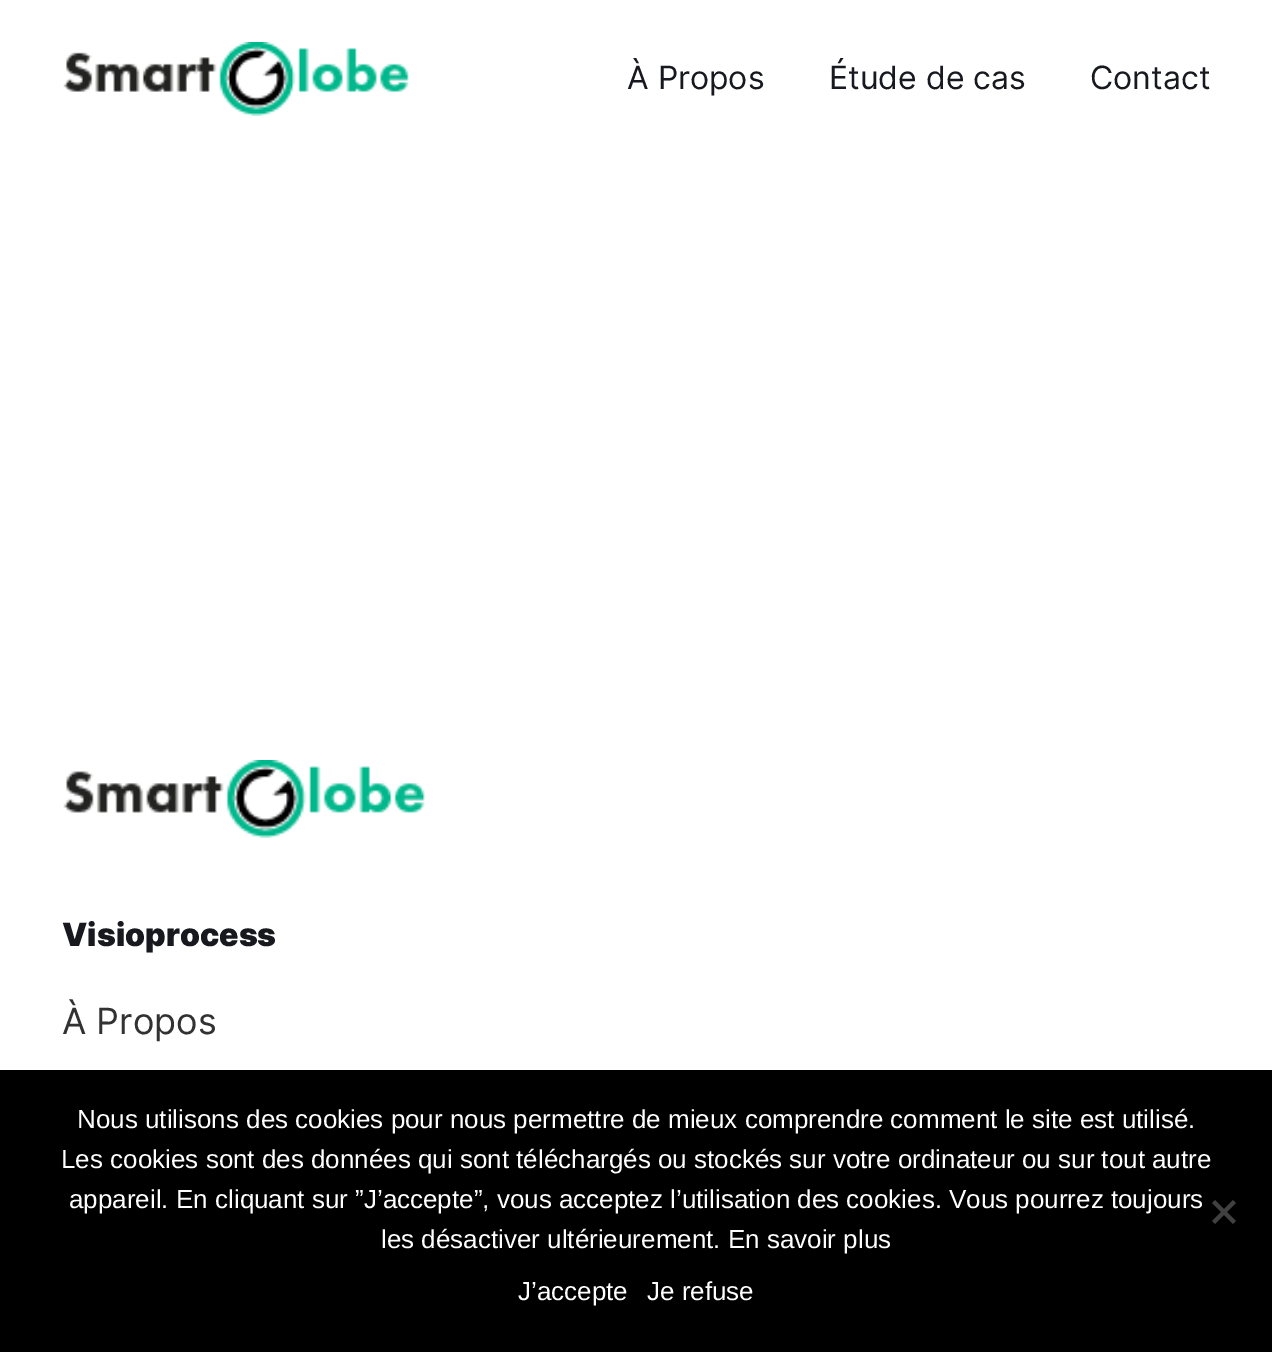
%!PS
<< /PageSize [1272 1352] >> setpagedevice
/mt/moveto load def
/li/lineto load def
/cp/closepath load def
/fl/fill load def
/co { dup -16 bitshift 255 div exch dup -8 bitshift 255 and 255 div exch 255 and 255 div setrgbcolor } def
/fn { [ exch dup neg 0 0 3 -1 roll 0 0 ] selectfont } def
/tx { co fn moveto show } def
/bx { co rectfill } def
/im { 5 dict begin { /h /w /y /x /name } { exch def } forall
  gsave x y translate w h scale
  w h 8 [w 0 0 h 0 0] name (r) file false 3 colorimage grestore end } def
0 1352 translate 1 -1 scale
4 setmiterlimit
0 0 1272 1352 16#FFFFFF bx
(media/1.raw) 63 42 346 74 im
(media/2.raw) 63 760 362 78 im
0 1070 1272 282 16#000000 bx
16#404040 co
1233 1200 mt 1236 1203 li 1215 1224 li 1212 1221 li cp fl
1212 1203 mt 1215 1200 li 1236 1221 li 1233 1224 li cp fl
(À Propos) 627 89 /Inter-Regular 32 16#17191F tx
(Étude de cas) 829 89 /Inter-Regular 32 16#17191F tx
(Contact) 1090 89 /Inter-Regular 32 16#17191F tx
(Visioprocess) 62 946 /Inter-Black 32 16#17191F tx
(À Propos) 62 1034 /Inter-Regular 36 16#323232 tx
(Nous utilisons des cookies pour nous permettre de mieux comprendre comment le site est utilisé.) 77 1128 /LiberationSans-Regular 26 16#FFFFFF tx
(Les cookies sont des données qui sont téléchargés ou stockés sur votre ordinateur ou sur tout autre) 61 1168 /LiberationSans-Regular 26 16#FFFFFF tx
(appareil. En cliquant sur ”J’accepte”, vous acceptez l’utilisation des cookies. Vous pourrez toujours) 69 1208 /LiberationSans-Regular 26 16#FFFFFF tx
(les désactiver ultérieurement. En savoir plus) 381 1248 /LiberationSans-Regular 26 16#FFFFFF tx
(J’accepte) 518 1300 /LiberationSans-Regular 26 16#FFFFFF tx
(Je refuse) 647 1300 /LiberationSans-Regular 26 16#FFFFFF tx
showpage
